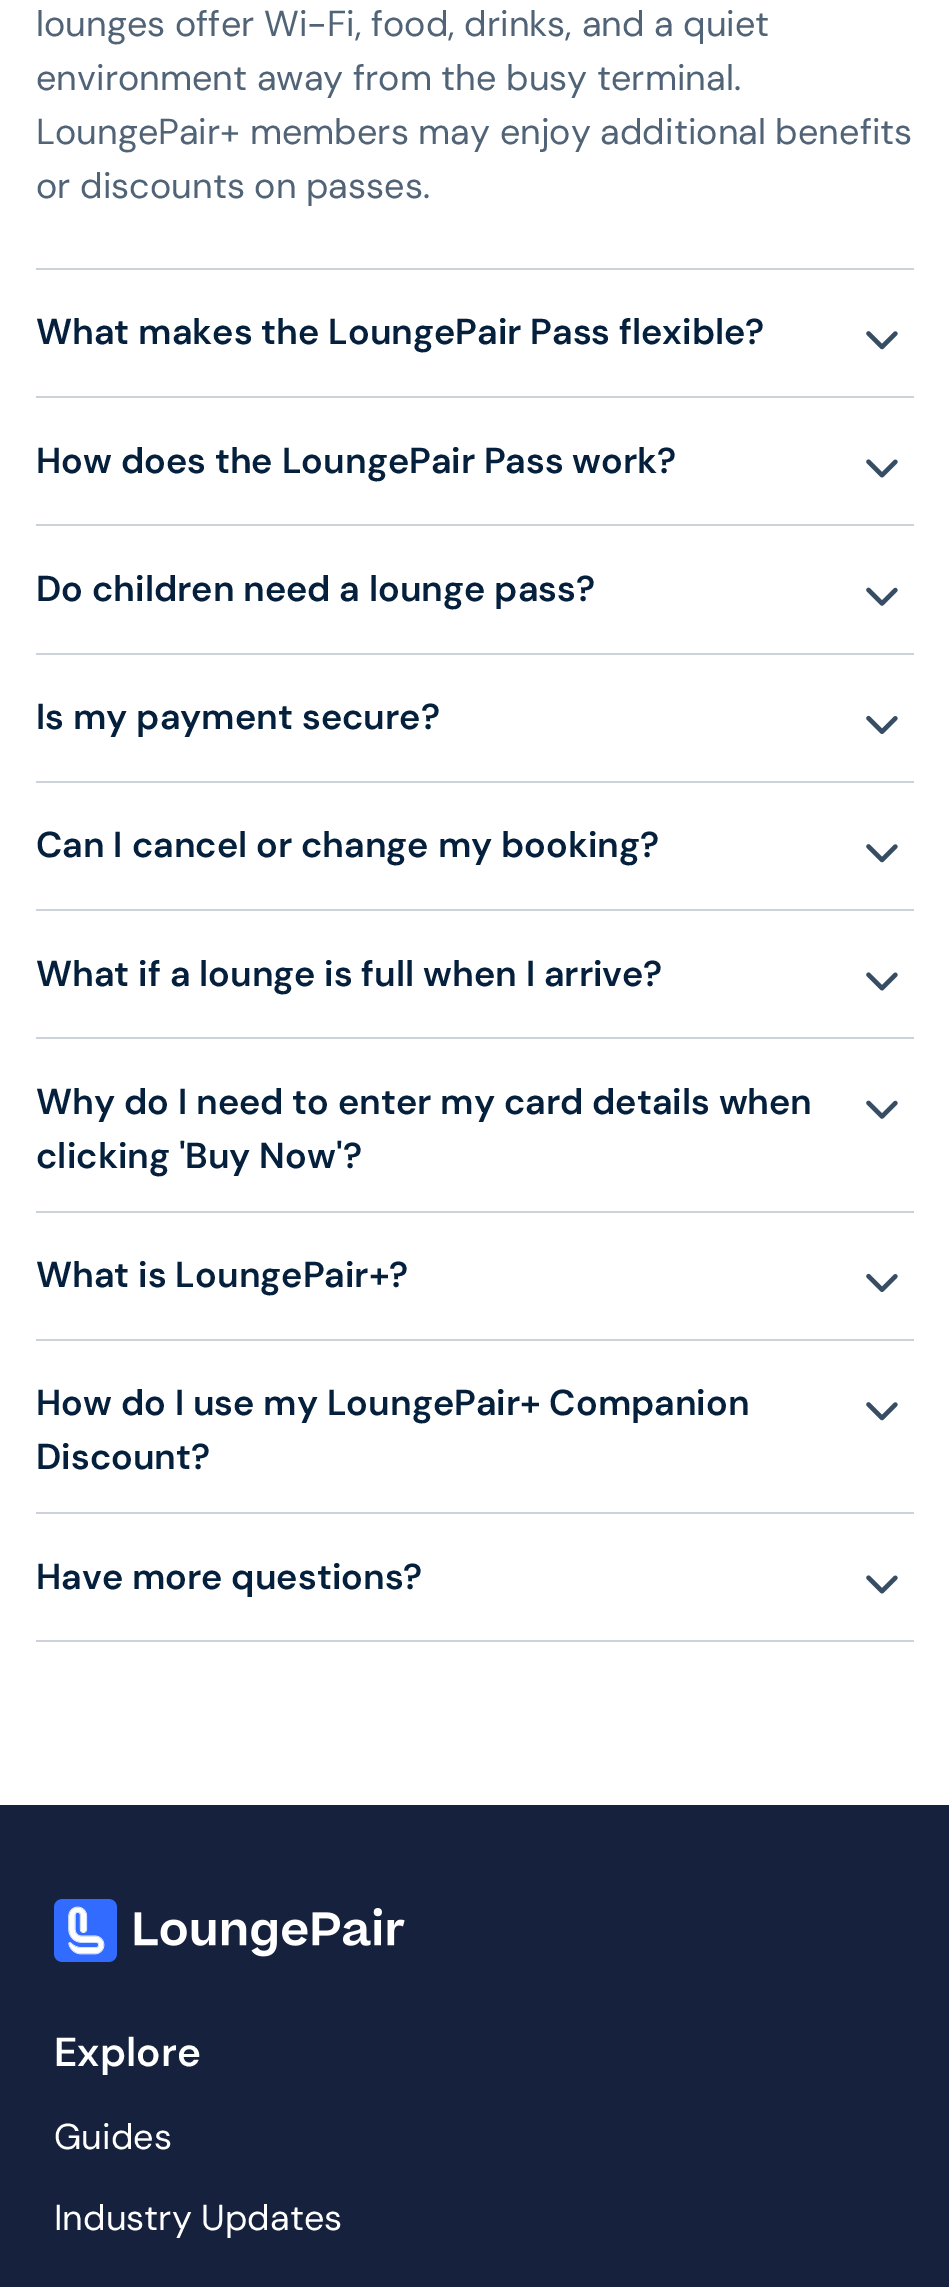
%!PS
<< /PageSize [949 2287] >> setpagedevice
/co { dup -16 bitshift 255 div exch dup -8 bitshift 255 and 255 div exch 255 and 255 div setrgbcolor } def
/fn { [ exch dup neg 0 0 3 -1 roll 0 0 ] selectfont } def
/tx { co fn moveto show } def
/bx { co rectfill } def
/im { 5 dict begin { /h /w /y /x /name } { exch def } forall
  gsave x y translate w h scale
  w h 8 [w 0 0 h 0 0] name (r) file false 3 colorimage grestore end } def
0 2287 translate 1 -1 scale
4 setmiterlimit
0 0 949 2287 16#FFFFFF bx
36 268 878 2 16#CDD2D8 bx
36 396 878 2 16#CDD2D8 bx
(media/1.raw) 866 331 32 19 im
36 524 878 2 16#CDD2D8 bx
(media/2.raw) 866 459 32 19 im
36 653 878 2 16#CDD2D8 bx
(media/3.raw) 866 587 32 19 im
36 781 878 2 16#CDD2D8 bx
(media/4.raw) 866 715 32 19 im
36 909 878 2 16#CDD2D8 bx
(media/1.raw) 866 844 32 19 im
36 1037 878 2 16#CDD2D8 bx
(media/2.raw) 866 972 32 19 im
36 1211 878 2 16#CDD2D8 bx
(media/3.raw) 866 1100 32 19 im
36 1339 878 2 16#CDD2D8 bx
(media/4.raw) 866 1273 32 19 im
36 1512 878 2 16#CDD2D8 bx
(media/1.raw) 866 1402 32 19 im
36 1640 878 2 16#CDD2D8 bx
(media/2.raw) 866 1575 32 19 im
0 1805 949 482 16#16213D bx
(media/5.raw) 54 1899 351 63 im
(lounges offer Wi-Fi, food, drinks, and a quiet) 36 36 /DMSans-Regular 36 16#506377 tx
(environment away from the busy terminal.) 36 90 /DMSans-Regular 36 16#506377 tx
(LoungePair+ members may enjoy additional benefits) 36 144 /DMSans-Regular 36 16#506377 tx
(or discounts on passes.) 36 198 /DMSans-Regular 36 16#506377 tx
(What makes the LoungePair Pass flexible?) 36 344 /DMSans-SemiBold 36 16#05203C tx
(How does the LoungePair Pass work?) 36 473 /DMSans-SemiBold 36 16#05203C tx
(Do children need a lounge pass?) 36 601 /DMSans-SemiBold 36 16#05203C tx
(Is my payment secure?) 36 729 /DMSans-SemiBold 36 16#05203C tx
(Can I cancel or change my booking?) 36 857 /DMSans-SemiBold 36 16#05203C tx
(What if a lounge is full when I arrive?) 36 986 /DMSans-SemiBold 36 16#05203C tx
(Why do I need to enter my card details when) 36 1114 /DMSans-SemiBold 36 16#05203C tx
(clicking 'Buy Now'?) 36 1168 /DMSans-SemiBold 36 16#05203C tx
(What is LoungePair+?) 36 1287 /DMSans-SemiBold 36 16#05203C tx
(How do I use my LoungePair+ Companion) 36 1415 /DMSans-SemiBold 36 16#05203C tx
(Discount?) 36 1469 /DMSans-SemiBold 36 16#05203C tx
(Have more questions?) 36 1589 /DMSans-SemiBold 36 16#05203C tx
(Explore) 54 2066 /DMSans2-SemiBold 40.5 16#FFFFFF tx
(Guides) 54 2149 /DMSans-Regular 36 16#FFFFFF tx
(Industry Updates) 54 2230 /DMSans-Regular 36 16#FFFFFF tx
showpage
